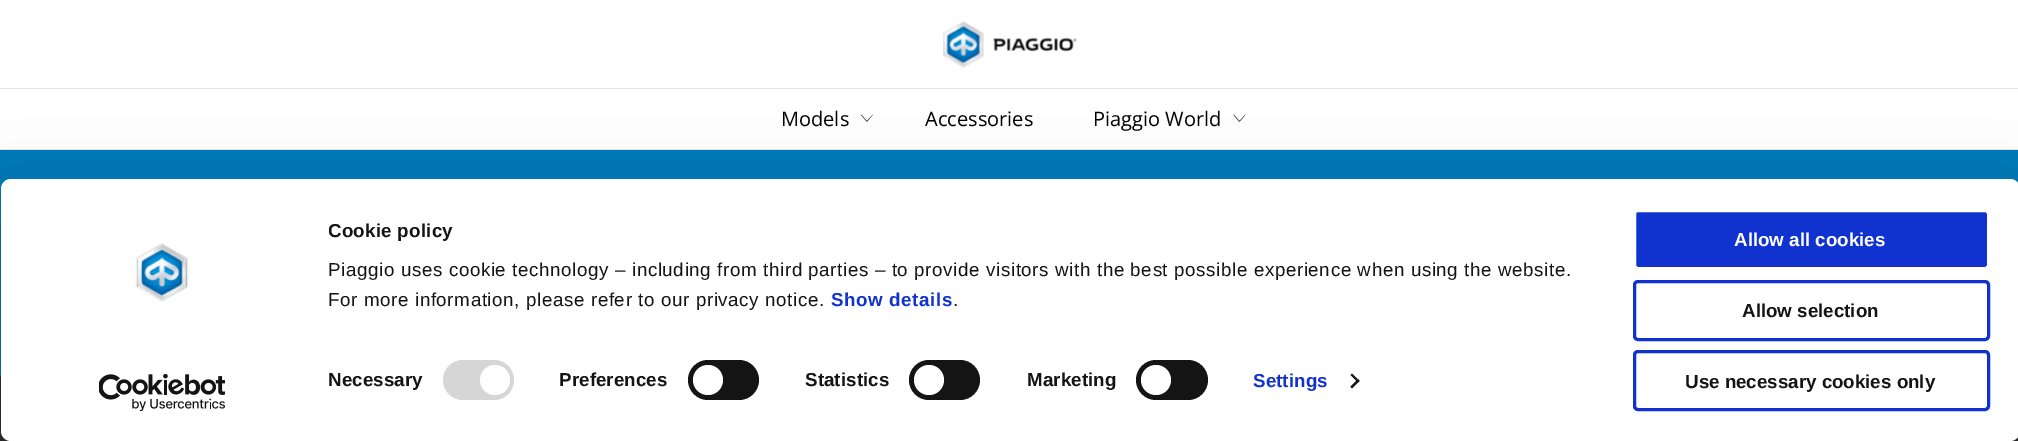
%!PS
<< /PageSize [2018 441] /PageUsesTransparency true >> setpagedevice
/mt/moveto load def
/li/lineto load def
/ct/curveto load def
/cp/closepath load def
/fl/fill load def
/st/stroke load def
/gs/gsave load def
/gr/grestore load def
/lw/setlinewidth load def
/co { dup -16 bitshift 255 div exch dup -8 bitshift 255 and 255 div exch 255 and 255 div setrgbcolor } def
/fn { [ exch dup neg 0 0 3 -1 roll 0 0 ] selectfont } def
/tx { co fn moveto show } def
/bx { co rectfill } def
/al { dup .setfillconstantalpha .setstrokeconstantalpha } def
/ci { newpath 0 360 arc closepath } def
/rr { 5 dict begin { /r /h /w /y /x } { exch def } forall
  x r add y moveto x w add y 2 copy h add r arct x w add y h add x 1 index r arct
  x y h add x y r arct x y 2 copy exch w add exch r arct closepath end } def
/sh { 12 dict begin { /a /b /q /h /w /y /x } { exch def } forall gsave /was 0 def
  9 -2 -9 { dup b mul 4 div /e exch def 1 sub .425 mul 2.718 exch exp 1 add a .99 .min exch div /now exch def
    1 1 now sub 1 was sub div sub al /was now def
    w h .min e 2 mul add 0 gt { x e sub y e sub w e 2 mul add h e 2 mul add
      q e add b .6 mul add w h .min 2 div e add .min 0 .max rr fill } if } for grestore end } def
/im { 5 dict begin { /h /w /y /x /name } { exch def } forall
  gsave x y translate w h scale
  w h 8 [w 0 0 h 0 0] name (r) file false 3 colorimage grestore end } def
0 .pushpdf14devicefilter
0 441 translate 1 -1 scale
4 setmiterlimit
0 0 2018 441 16#007AB8 bx
0 0 2018 88 16#FFFFFF bx
(media/1.raw) 943 21 134 47 im
0 89 2018 60 16#FFFFFF bx
0 88 2018 1 16#E5E5E5 bx
0 149 2018 1 16#E5E5E5 bx
(media/2.raw) 860 114 13 8 im
(media/3.raw) 1233 114 13 8 im
0 376 2018 65 16#303030 bx
gs
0 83 mt 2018 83 li 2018 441 li 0 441 li cp 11 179 mt 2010 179 li 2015.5 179 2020 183.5 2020 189 ct 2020 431 li 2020 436.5 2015.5 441 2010 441 ct 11 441 li 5.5 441 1 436.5 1 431 ct 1 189 li 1 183.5 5.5 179 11 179 ct cp eoclip newpath
16#000000 co
1 216 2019 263 10 44 .3 sh
gr
16#FFFFFF co
1 179 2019 262 10 rr fl
(media/4.raw) 135 243 54 59 im
(media/5.raw) 99 374 126 37 im
16#D6D6D6 co
443 360 71 40 20 rr fl
16#FFFFFF co
495 380 15 ci fl
16#141414 co
688 360 71 40 20 rr fl
16#FFFFFF co
708 380 15 ci fl
16#141414 co
909 360 71 40 20 rr fl
16#FFFFFF co
929 380 15 ci fl
16#141414 co
1136 360 72 40 20 rr fl
16#FFFFFF co
1156 380 15 ci fl
16#141414 co
1352 373.5 mt 1359.5 381 li 1358 382.5 li 1350.5 375 li cp fl
1358 379 mt 1359.5 381 li 1352 388.5 li 1350.5 386.5 li cp fl
16#1032CF co
1634.5 210.5 354 58 3.5 rr gs fl gr
16#FFFFFF co
3 lw
st
16#1032CF co
1634.5 281.5 354 58 3.5 rr st
1634.5 351.5 354 58 3.5 rr st
(Models) 781 126 /OpenSans-Regular 20 16#000000 tx
(Accessories) 925 126 /OpenSans-Regular 20 16#000000 tx
(Piaggio World) 1093 126 /OpenSans-Regular 20 16#000000 tx
gs
329 216 1267 99 rectclip
/LiberationSans-Bold 18.75 fn
16#141414 co
328 237 mt .25 0 (Cookie policy) ashow
gr
/LiberationSans-Regular 18.75 fn
16#141414 co
328 276 mt .62 0 (Piaggio uses cookie technology – including from third parties – to provide visitors with the best possible experience when using the website.) ashow
328 306 mt .62 0 (For more information, please refer to our privacy notice.) ashow
/LiberationSans-Bold 18.75 fn
16#1032CF co
831 306 mt .62 0 (Show details) ashow
/LiberationSans-Regular 18.75 fn
16#141414 co
953 306 mt .62 0 (.) ashow
/LiberationSans-Bold 18.75 fn
328 386 mt .1 0 (Necessary) ashow
559 386 mt .1 0 (Preferences) ashow
805 386 mt .1 0 (Statistics) ashow
1027 386 mt .1 0 (Marketing) ashow
16#1032CF co
1253 387 mt .1 0 (Settings) ashow
(Allow all cookies) 1734 246 /LiberationSans-Bold 18.75 16#FFFFFF tx
(Allow selection) 1742 317 /LiberationSans-Bold 18.75 16#141414 tx
(Use necessary cookies only) 1685 388 /LiberationSans-Bold 18.75 16#141414 tx
.poppdf14devicefilter showpage
